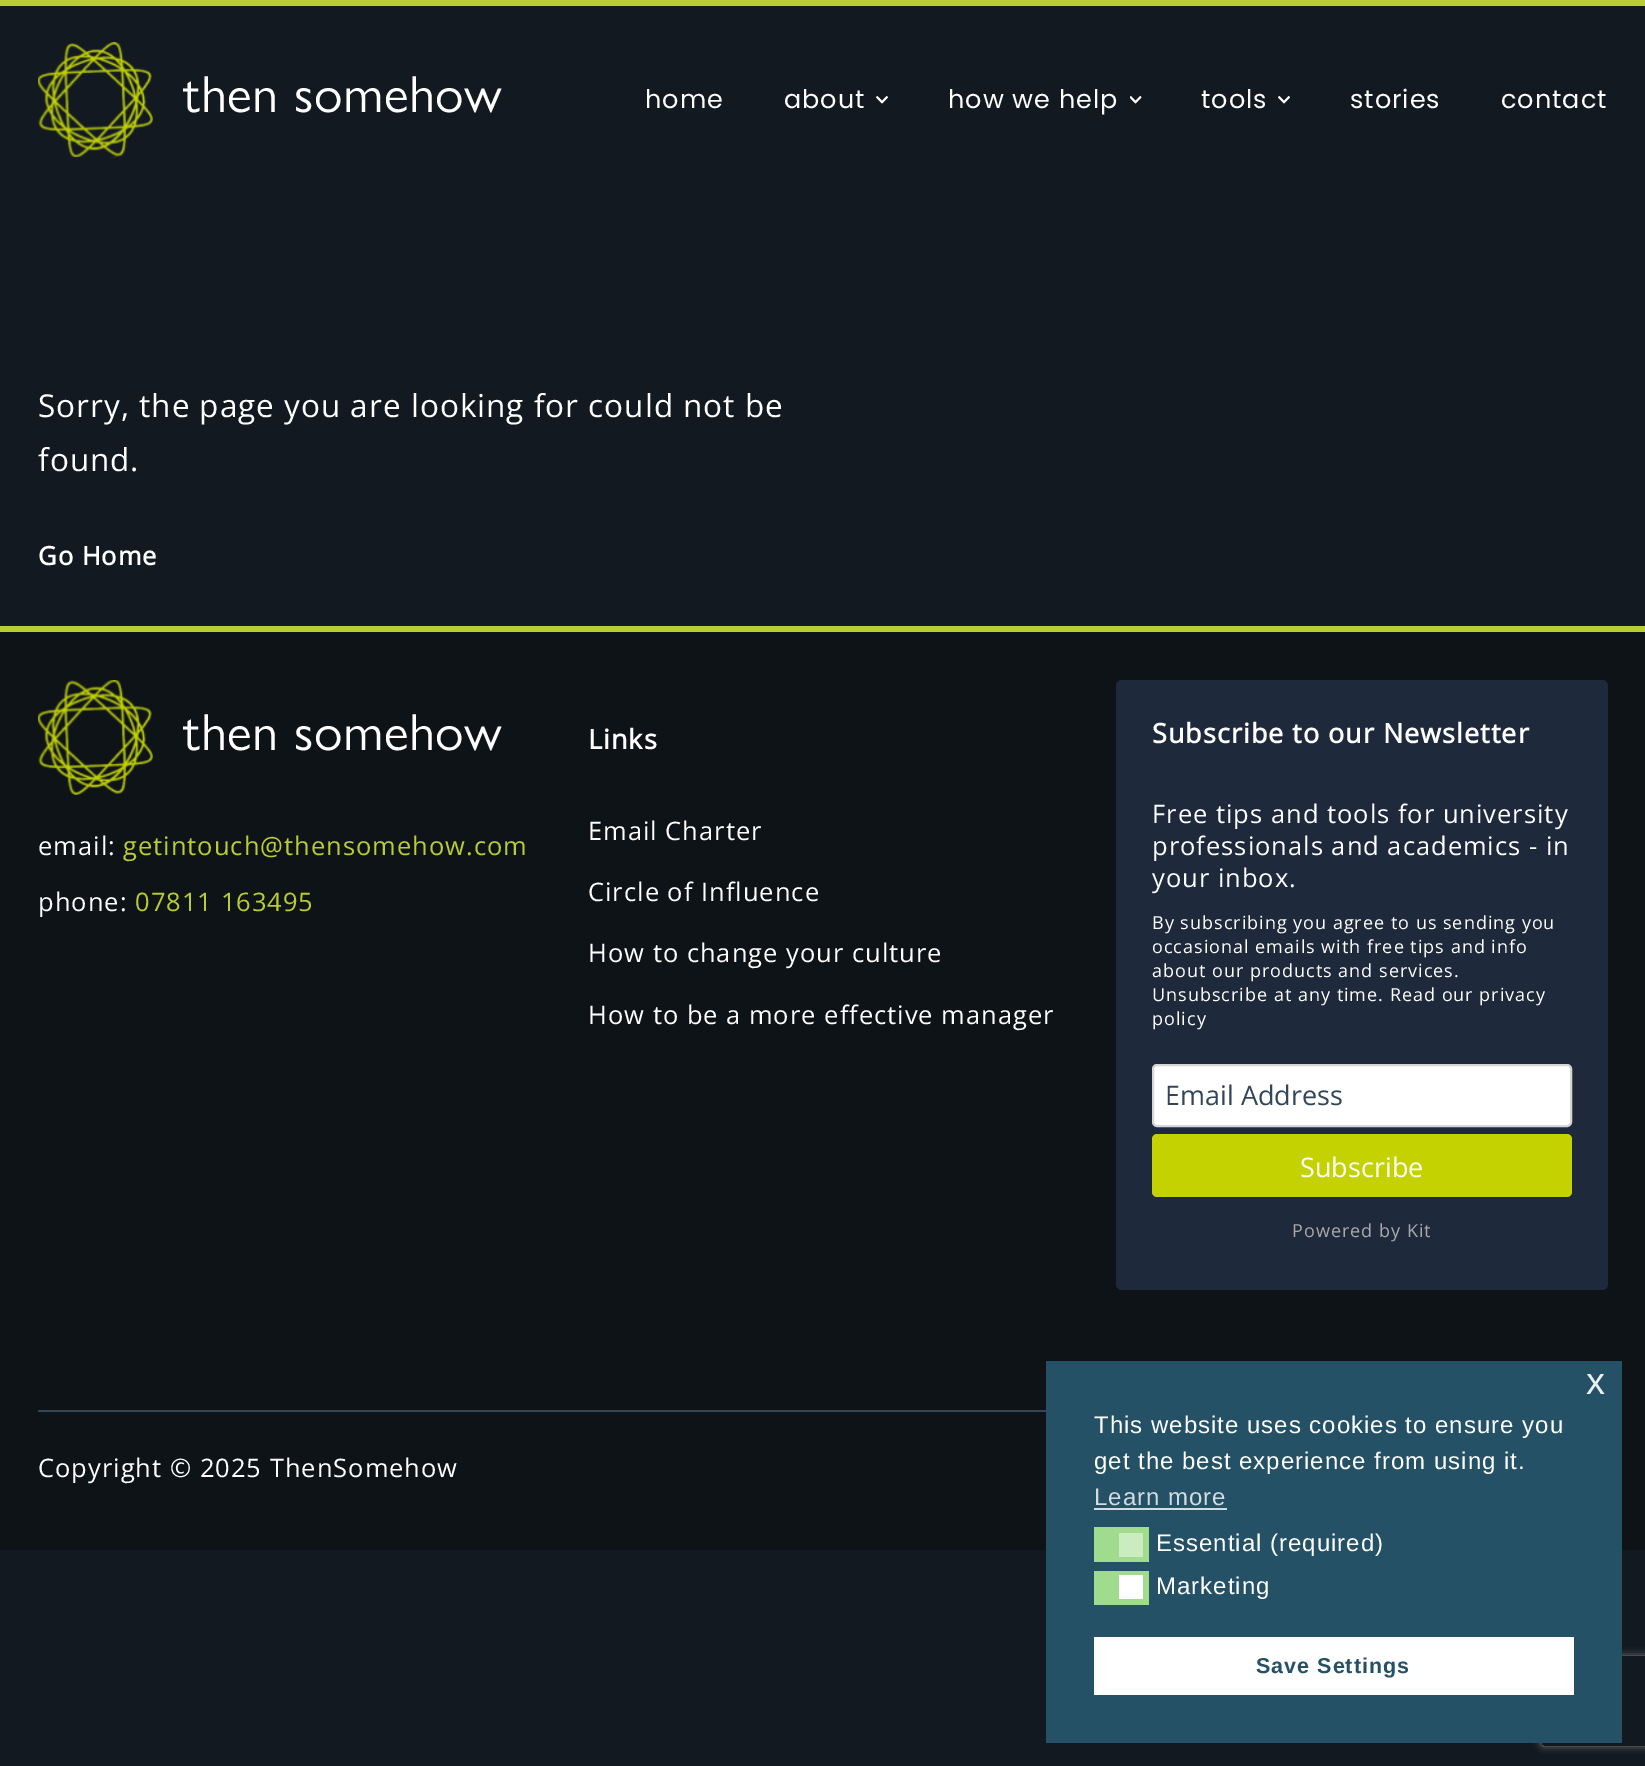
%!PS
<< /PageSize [1645 1766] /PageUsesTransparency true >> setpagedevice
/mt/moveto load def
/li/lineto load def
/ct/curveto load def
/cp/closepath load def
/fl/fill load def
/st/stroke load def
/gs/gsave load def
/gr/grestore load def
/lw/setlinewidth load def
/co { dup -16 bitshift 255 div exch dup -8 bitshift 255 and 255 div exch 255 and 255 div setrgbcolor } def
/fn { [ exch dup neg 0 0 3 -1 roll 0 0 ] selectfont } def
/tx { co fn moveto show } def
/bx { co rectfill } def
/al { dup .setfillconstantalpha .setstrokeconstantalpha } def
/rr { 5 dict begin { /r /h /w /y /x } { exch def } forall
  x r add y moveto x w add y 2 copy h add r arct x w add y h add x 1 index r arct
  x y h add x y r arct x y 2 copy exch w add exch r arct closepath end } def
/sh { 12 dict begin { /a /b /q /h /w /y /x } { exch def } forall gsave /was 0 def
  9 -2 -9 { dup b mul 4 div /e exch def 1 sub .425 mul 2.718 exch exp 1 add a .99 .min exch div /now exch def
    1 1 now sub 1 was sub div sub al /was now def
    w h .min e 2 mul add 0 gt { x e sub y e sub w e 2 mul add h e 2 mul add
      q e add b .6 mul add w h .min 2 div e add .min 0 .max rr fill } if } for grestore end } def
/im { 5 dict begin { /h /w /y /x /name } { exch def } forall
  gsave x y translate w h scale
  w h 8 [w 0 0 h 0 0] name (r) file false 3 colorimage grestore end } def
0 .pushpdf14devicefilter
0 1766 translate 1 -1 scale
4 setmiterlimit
0 0 1645 1766 16#121921 bx
0 0 1645 6 16#B9CD33 bx
(media/1.raw) 38 42 115 116 im
(media/2.raw) 876 96 12 8 im
(media/3.raw) 1130 96 12 8 im
(media/2.raw) 1278 96 12 8 im
0 632 1645 918 16#0E1318 bx
0 626 1645 6 16#B9CD33 bx
(media/4.raw) 38 680 115 115 im
16#1E293B co
1116 680 492 610 6 rr fl
16#FFFFFF co
1153 1065 418 61 4 rr gs fl gr
16#D6D6D6 co
2 lw
st
16#C3D200 co
1152 1134 420 63 5 rr fl
38 1410 1008 2 16#324659 bx
gs
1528 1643 mt 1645 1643 li 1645 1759 li 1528 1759 li cp 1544 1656 mt 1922 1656 li 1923.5 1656 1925 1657.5 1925 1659 ct 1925 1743 li 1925 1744.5 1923.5 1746 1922 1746 ct 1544 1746 li 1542.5 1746 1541 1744.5 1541 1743 ct 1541 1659 li 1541 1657.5 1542.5 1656 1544 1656 ct cp eoclip newpath
16#808080 co
1541 1656 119 90 3 4 1 sh
gr
1046 1361 576 382 16#245165 bx
1094 1508 133 2 16#D3DCE0 bx
1094 1527 55 35 16#A0DB8E bx
1119 1533 24 24 16#CBEBC1 bx
1094 1571 55 34 16#A0DB8E bx
1119 1575 24 24 16#FFFFFF bx
1094 1637 480 58 16#FFFFFF bx
/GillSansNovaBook-Regular 52.5 fn
183 112 mt .5 0 (then somehow) ashow
/Poppins-Regular 25.5 fn
645 108 mt 1 0 (home) ashow
784 108 mt 1 0 (about) ashow
948 108 mt 1 0 (how we help) ashow
1201 108 mt 1 0 (tools) ashow
1350 108 mt 1 0 (stories) ashow
1501 108 mt 1 0 (contact) ashow
/OpenSans-Regular 31.5 fn
38 417 mt 1 0 (Sorry, the page you are looking for could not be) ashow
38 471 mt 1 0 (found.) ashow
/OpenSans-Bold 25.5 fn
38 565 mt 1 0 (Go Home) ashow
/GillSansNovaBook-Regular 52.5 fn
183 750 mt .5 0 (then somehow) ashow
/OpenSans-Regular 25.5 fn
38 855 mt 1 0 (email:) ashow
16#B9CD33 co
123 855 mt 1 0 (getintouch@thensomehow.com) ashow
16#FFFFFF co
38 911 mt 1 0 (phone:) ashow
16#B9CD33 co
135 911 mt 1 0 (07811 163495) ashow
/OpenSans-Bold 27 fn
16#FFFFFF co
588 749 mt 1 0 (Links) ashow
/OpenSans-Regular 25.5 fn
588 840 mt 1 0 (Email Charter) ashow
588 901 mt 1 0 (Circle of Influence) ashow
588 962 mt 1 0 (How to change your culture) ashow
588 1024 mt 1 0 (How to be a more effective manager) ashow
/OpenSans-Bold 27 fn
1152 743 mt 1 0 (Subscribe to our Newsletter) ashow
/OpenSans-Regular 25.5 fn
1152 823 mt 1 0 (Free tips and tools for university) ashow
1152 855 mt 1 0 (professionals and academics - in) ashow
1152 887 mt 1 0 (your inbox.) ashow
/OpenSans-Regular 18 fn
1152 929 mt 1 0 (By subscribing you agree to us sending you) ashow
1152 953 mt 1 0 (occasional emails with free tips and info) ashow
1152 977 mt 1 0 (about our products and services.) ashow
1152 1001 mt 1 0 (Unsubscribe at any time. Read our privacy) ashow
1152 1025 mt 1 0 (policy) ashow
(Email Address) 1165 1105 /OpenSans-Regular 27 16#324659 tx
(Subscribe) 1300 1177 /OpenSans-Regular 27 16#FFFFFF tx
/OpenSans-Regular 18 fn
16#AAAAAA co
1292 1237 mt 1 0 (Powered by Kit) ashow
/OpenSans-Regular 25.5 fn
16#FFFFFF co
38 1477 mt 1 0 (Copyright © 2025 ThenSomehow) ashow
/LiberationSans-Regular 38 fn
16#E9EEF0 co
1586 1394 mt 1 0 (x) ashow
/LiberationSans-Regular 24 fn
16#FFFFFF co
1094 1433 mt 1 0 (This website uses cookies to ensure you) ashow
1094 1469 mt 1 0 (get the best experience from using it.) ashow
16#D3DCE0 co
1094 1505 mt 1 0 (Learn more) ashow
16#FFFFFF co
1156 1551 mt 1 0 (Essential \(required\)) ashow
1156 1594 mt 1 0 (Marketing) ashow
/LiberationSans-Bold 21.5 fn
16#245165 co
1256 1673 mt 1 0 (Save Settings) ashow
.poppdf14devicefilter showpage
